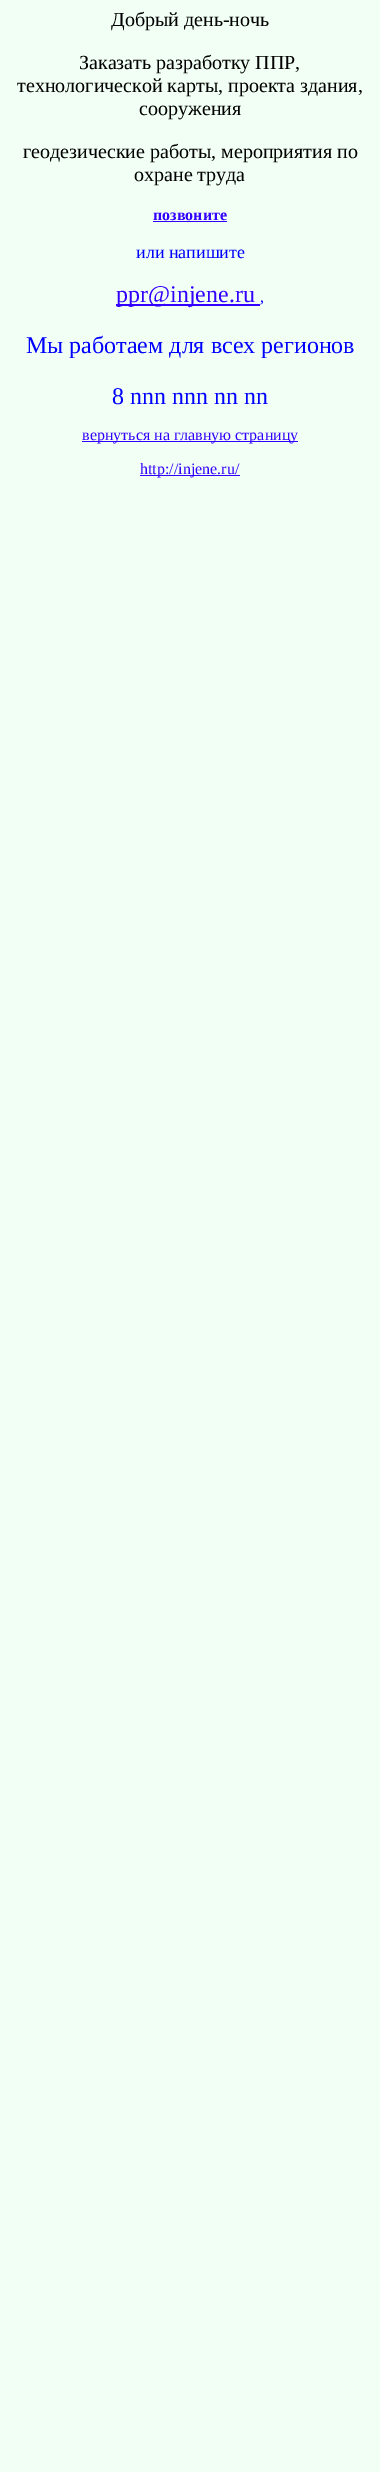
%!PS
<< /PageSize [380 2472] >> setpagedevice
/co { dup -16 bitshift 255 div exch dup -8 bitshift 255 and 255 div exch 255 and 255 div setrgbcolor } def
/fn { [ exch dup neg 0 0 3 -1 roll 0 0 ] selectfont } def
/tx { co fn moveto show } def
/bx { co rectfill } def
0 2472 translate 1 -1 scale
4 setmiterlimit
0 0 380 2472 16#F2FFF4 bx
153 221 74 1 16#3300FF bx
116 304 144 2 16#3300FF bx
82 441 216 1 16#3300FF bx
140 475 100 1 16#3300FF bx
(Добрый день-ночь) 111 26 /LiberationSerif-Regular 20 16#000000 tx
(Заказать разработку ППР,) 79 69 /LiberationSerif-Regular 20 16#000000 tx
(технологической карты, проекта здания,) 17 92 /LiberationSerif-Regular 20 16#000000 tx
(сооружения) 139 115 /LiberationSerif-Regular 20 16#000000 tx
(геодезические работы, мероприятия по) 23 158 /LiberationSerif-Regular 20 16#000000 tx
(охране труда) 134 181 /LiberationSerif-Regular 20 16#000000 tx
(позвоните) 153 220 /LiberationSerif-Bold 16 16#3300FF tx
(или напишите) 136 258 /LiberationSerif-Regular 18 16#0000FF tx
(ppr@injene.ru) 116 302 /LiberationSerif-Regular 24 16#3300FF tx
(,) 260 302 /LiberationSerif-Regular 16 16#0000FF tx
(Мы работаем для всех регионов) 26 353 /LiberationSerif-Regular 24 16#0000FF tx
(8 nnn nnn nn nn) 112 404 /LiberationSerif-Regular 24 16#0000FF tx
(вернуться на главную страницу) 82 440 /LiberationSerif-Regular 16 16#3300FF tx
(http://injene.ru/) 140 474 /LiberationSerif-Regular 16 16#3300FF tx
showpage
